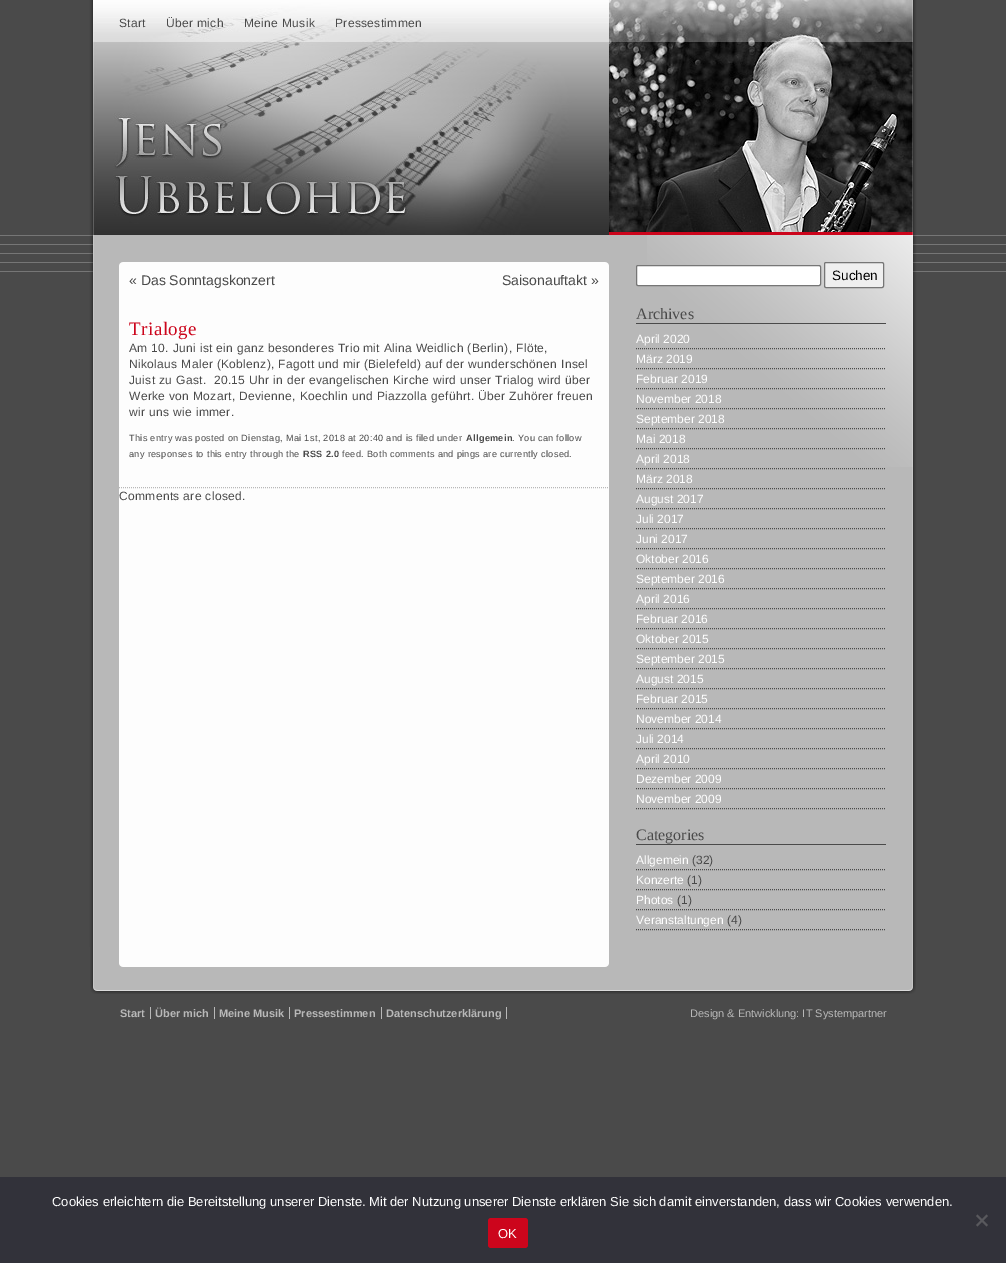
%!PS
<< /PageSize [1006 1263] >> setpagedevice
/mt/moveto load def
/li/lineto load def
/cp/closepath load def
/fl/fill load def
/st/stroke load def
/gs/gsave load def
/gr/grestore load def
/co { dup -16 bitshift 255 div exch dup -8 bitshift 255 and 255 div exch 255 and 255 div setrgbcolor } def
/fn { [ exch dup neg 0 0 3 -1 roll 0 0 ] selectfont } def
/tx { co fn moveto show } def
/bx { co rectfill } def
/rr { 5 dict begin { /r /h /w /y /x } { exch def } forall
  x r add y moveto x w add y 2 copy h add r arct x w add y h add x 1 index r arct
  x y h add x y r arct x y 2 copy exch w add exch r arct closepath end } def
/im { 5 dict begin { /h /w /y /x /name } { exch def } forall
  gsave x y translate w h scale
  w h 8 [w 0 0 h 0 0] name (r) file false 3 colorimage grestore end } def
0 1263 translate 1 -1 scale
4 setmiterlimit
0 0 1006 1263 16#4A4A4A bx
(media/1.raw) 0 235 1006 37 im
(media/2.raw) 89 0 828 947 im
(media/3.raw) 93 0 820 235 im
(media/4.raw) 89 235 520 37 im
16#B8B8B8 co
[1 1] 0 setdash
119 487.5 mt 609 487.5 li st
(media/5.raw) 647 235 270 232 im
16#FFFFFF co
636.5 265.5 184 20 1.5 rr gs fl gr
16#767676 co
[] 0 setdash
st
16#EFEFEF co
824.5 262.5 59 25 1.5 rr gs fl gr
16#767676 co
st
636 323 250 1 16#4A4A4A bx
[1 1] 0 setdash
636 348.5 mt 886 348.5 li st
636 368.5 mt 886 368.5 li st
636 388.5 mt 886 388.5 li st
636 408.5 mt 886 408.5 li st
636 428.5 mt 886 428.5 li st
636 448.5 mt 886 448.5 li st
636 468.5 mt 886 468.5 li st
636 488.5 mt 886 488.5 li st
636 508.5 mt 886 508.5 li st
636 528.5 mt 886 528.5 li st
636 548.5 mt 886 548.5 li st
636 568.5 mt 886 568.5 li st
636 588.5 mt 886 588.5 li st
636 608.5 mt 886 608.5 li st
636 628.5 mt 886 628.5 li st
636 648.5 mt 886 648.5 li st
636 668.5 mt 886 668.5 li st
636 688.5 mt 886 688.5 li st
636 708.5 mt 886 708.5 li st
636 728.5 mt 886 728.5 li st
636 748.5 mt 886 748.5 li st
636 768.5 mt 886 768.5 li st
636 788.5 mt 886 788.5 li st
636 808.5 mt 886 808.5 li st
636 844 250 1 16#4A4A4A bx
636 869.5 mt 886 869.5 li st
636 889.5 mt 886 889.5 li st
636 909.5 mt 886 909.5 li st
636 929.5 mt 886 929.5 li st
(media/6.raw) 90 947 826 47 im
150 1007 1 12 16#B8B8B8 bx
214 1007 1 12 16#B8B8B8 bx
289 1007 1 12 16#B8B8B8 bx
381 1007 1 12 16#B8B8B8 bx
506 1007 1 12 16#B8B8B8 bx
0 1177 1006 86 16#32323A bx
16#59595D co
986.5 1214.5 mt 988 1216 li 977.5 1226.5 li 976 1225 li cp fl
976 1216 mt 977.5 1214.5 li 988 1225 li 986.5 1226.5 li cp fl
16#CC051C co
488 1218 40 30 3 rr fl
/LiberationSans-Regular 12 fn
16#4A4A4A co
119 27 mt .33 0 (Start) ashow
166 27 mt .33 0 (Über mich) ashow
244 27 mt .33 0 (Meine Musik) ashow
335 27 mt .33 0 (Pressestimmen) ashow
(« Das Sonntagskonzert) 129 285 /LiberationSans-Regular 14 16#4A4A4A tx
(Saisonauftakt ») 502 285 /LiberationSans-Regular 14 16#4A4A4A tx
/LiberationSerif-Regular 19 fn
16#CC051C co
129 335 mt .5 0 (Trialoge) ashow
/LiberationSans-Regular 12 fn
16#4A4A4A co
129 352 mt .33 0 (Am 10. Juni ist ein ganz besonderes Trio mit Alina Weidlich \(Berlin\), Flöte,) ashow
129 368 mt .33 0 (Nikolaus Maler \(Koblenz\), Fagott und mir \(Bielefeld\) auf der wunderschönen Insel) ashow
129 384 mt .33 0 (Juist zu Gast.  20.15 Uhr in der evangelischen Kirche wird unser Trialog wird über) ashow
129 400 mt .33 0 (Werke von Mozart, Devienne, Koechlin und Piazzolla geführt. Über Zuhörer freuen) ashow
129 416 mt .33 0 (wir uns wie immer.) ashow
/LiberationSans-Regular 9.15 fn
129 441 mt .33 0 (This entry was posted on Dienstag, Mai 1st, 2018 at 20:40 and is filed under) ashow
/LiberationSans-Bold 9.15 fn
466 441 mt .33 0 (Allgemein) ashow
/LiberationSans-Regular 9.15 fn
512 441 mt .33 0 (. You can follow) ashow
129 457 mt .33 0 (any responses to this entry through the) ashow
/LiberationSans-Bold 9.15 fn
303 457 mt .33 0 (RSS 2.0) ashow
/LiberationSans-Regular 9.15 fn
342 457 mt .33 0 (feed. Both comments and pings are currently closed.) ashow
/LiberationSans-Regular 12 fn
119 500 mt .33 0 (Comments are closed.) ashow
(Suchen) 832 280 /LiberationSans-Regular 13.5 16#000000 tx
(Archives) 636 319 /LiberationSerif-Regular 16 16#4A4A4A tx
(April 2020) 636 343 /LiberationSans-Regular 12 16#FFFFFF tx
(März 2019) 636 363 /LiberationSans-Regular 12 16#FFFFFF tx
(Februar 2019) 636 383 /LiberationSans-Regular 12 16#FFFFFF tx
(November 2018) 636 403 /LiberationSans-Regular 12 16#FFFFFF tx
(September 2018) 636 423 /LiberationSans-Regular 12 16#FFFFFF tx
(Mai 2018) 636 443 /LiberationSans-Regular 12 16#FFFFFF tx
(April 2018) 636 463 /LiberationSans-Regular 12 16#FFFFFF tx
(März 2018) 636 483 /LiberationSans-Regular 12 16#FFFFFF tx
(August 2017) 636 503 /LiberationSans-Regular 12 16#FFFFFF tx
(Juli 2017) 636 523 /LiberationSans-Regular 12 16#FFFFFF tx
(Juni 2017) 636 543 /LiberationSans-Regular 12 16#FFFFFF tx
(Oktober 2016) 636 563 /LiberationSans-Regular 12 16#FFFFFF tx
(September 2016) 636 583 /LiberationSans-Regular 12 16#FFFFFF tx
(April 2016) 636 603 /LiberationSans-Regular 12 16#FFFFFF tx
(Februar 2016) 636 623 /LiberationSans-Regular 12 16#FFFFFF tx
(Oktober 2015) 636 643 /LiberationSans-Regular 12 16#FFFFFF tx
(September 2015) 636 663 /LiberationSans-Regular 12 16#FFFFFF tx
(August 2015) 636 683 /LiberationSans-Regular 12 16#FFFFFF tx
(Februar 2015) 636 703 /LiberationSans-Regular 12 16#FFFFFF tx
(November 2014) 636 723 /LiberationSans-Regular 12 16#FFFFFF tx
(Juli 2014) 636 743 /LiberationSans-Regular 12 16#FFFFFF tx
(April 2010) 636 763 /LiberationSans-Regular 12 16#FFFFFF tx
(Dezember 2009) 636 783 /LiberationSans-Regular 12 16#FFFFFF tx
(November 2009) 636 803 /LiberationSans-Regular 12 16#FFFFFF tx
(Categories) 636 840 /LiberationSerif-Regular 16 16#4A4A4A tx
(Allgemein) 636 864 /LiberationSans-Regular 12 16#FFFFFF tx
(\(32\)) 692 864 /LiberationSans-Regular 12 16#4A4A4A tx
(Konzerte) 636 884 /LiberationSans-Regular 12 16#FFFFFF tx
(\(1\)) 687 884 /LiberationSans-Regular 12 16#4A4A4A tx
(Photos) 636 904 /LiberationSans-Regular 12 16#FFFFFF tx
(\(1\)) 677 904 /LiberationSans-Regular 12 16#4A4A4A tx
(Veranstaltungen) 636 924 /LiberationSans-Regular 12 16#FFFFFF tx
(\(4\)) 727 924 /LiberationSans-Regular 12 16#4A4A4A tx
(Start) 120 1017 /LiberationSans-Bold 11 16#B8B8B8 tx
(Über mich) 155 1017 /LiberationSans-Bold 11 16#B8B8B8 tx
(Meine Musik) 219 1017 /LiberationSans-Bold 11 16#B8B8B8 tx
(Pressestimmen) 294 1017 /LiberationSans-Bold 11 16#B8B8B8 tx
(Datenschutzerklärung) 386 1017 /LiberationSans-Bold 11 16#B8B8B8 tx
(Design & Entwicklung: IT Systempartner) 690 1017 /LiberationSans-Regular 11 16#B8B8B8 tx
(Cookies erleichtern die Bereitstellung unserer Dienste. Mit der Nutzung unserer Dienste erklären Sie sich damit einverstanden, dass wir Cookies verwenden.) 52 1206 /LiberationSans-Regular 13 16#FFFFFF tx
(OK) 498 1238 /LiberationSans-Regular 13 16#FFFFFF tx
showpage
